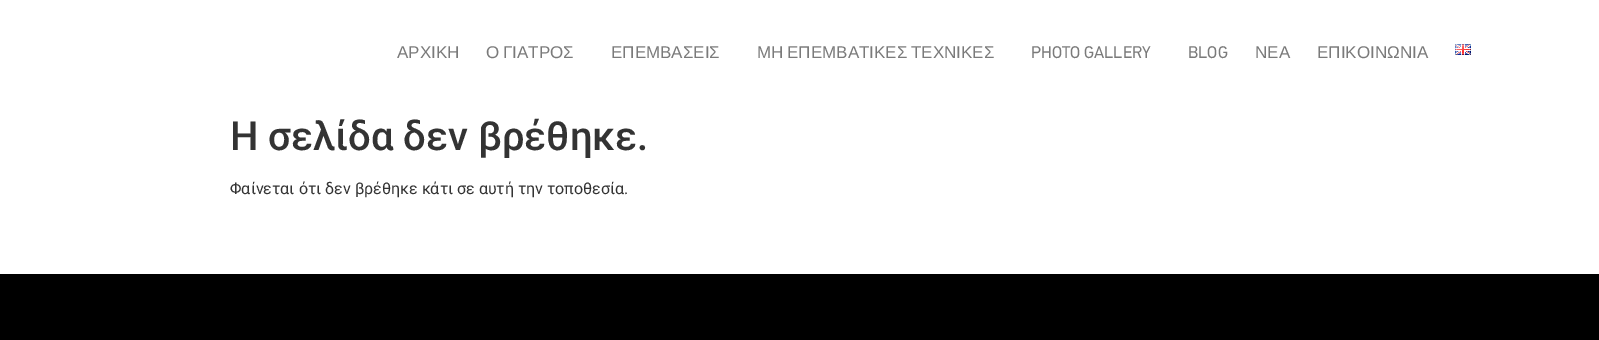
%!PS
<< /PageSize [1599 340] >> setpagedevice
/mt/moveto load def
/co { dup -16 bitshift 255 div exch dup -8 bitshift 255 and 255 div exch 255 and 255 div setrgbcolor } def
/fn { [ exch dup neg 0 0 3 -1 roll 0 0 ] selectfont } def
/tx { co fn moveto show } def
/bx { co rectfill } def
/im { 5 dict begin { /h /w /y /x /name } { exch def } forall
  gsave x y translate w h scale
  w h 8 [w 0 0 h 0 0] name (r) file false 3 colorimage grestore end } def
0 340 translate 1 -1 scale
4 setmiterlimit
0 0 1599 340 16#FFFFFF bx
(media/1.raw) 1455 44 16 11 im
0 274 1599 66 16#000000 bx
(ΑΡΧΙΚΗ) 397 58 /LiberationSans-Regular 17 16#7A7A7A tx
486 58 mt -1 0 32 (Ο ΓΙΑΤΡΟΣ) widthshow
(ΕΠΕΜΒΑΣΕΙΣ) 611 58 /LiberationSans-Regular 17 16#7A7A7A tx
757 58 mt -1 0 32 (ΜΗ ΕΠΕΜΒΑΤΙΚΕΣ ΤΕΧΝΙΚΕΣ) widthshow
(PHOTO GALLERY) 1031 58 /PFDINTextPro-Regular 17 16#7A7A7A tx
(BLOG) 1188 58 /PFDINTextPro-Regular 17 16#7A7A7A tx
(ΝΕΑ) 1255 58 /LiberationSans-Regular 17 16#7A7A7A tx
(ΕΠΙΚΟΙΝΩΝΙΑ) 1317 58 /LiberationSans-Regular 17 16#7A7A7A tx
(Η σελίδα δεν βρέθηκε.) 230 150 /Roboto-Medium 40 16#333333 tx
(Φαίνεται ότι δεν βρέθηκε κάτι σε αυτή την τοποθεσία.) 230 194 /Roboto-Regular 16 16#333333 tx
showpage
